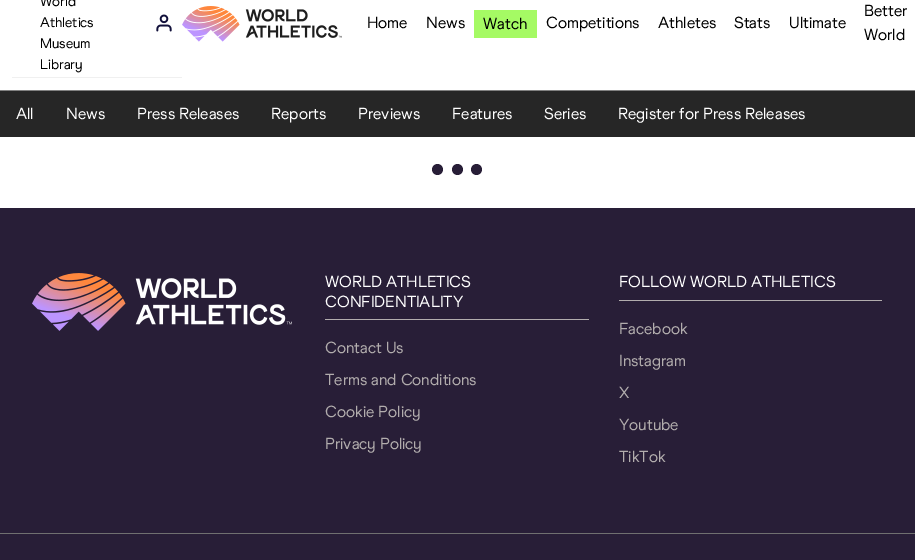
%!PS
<< /PageSize [915 560] >> setpagedevice
/fl/fill load def
/co { dup -16 bitshift 255 div exch dup -8 bitshift 255 and 255 div exch 255 and 255 div setrgbcolor } def
/fn { [ exch dup neg 0 0 3 -1 roll 0 0 ] selectfont } def
/tx { co fn moveto show } def
/bx { co rectfill } def
/ci { newpath 0 360 arc closepath } def
/im { 5 dict begin { /h /w /y /x /name } { exch def } forall
  gsave x y translate w h scale
  w h 8 [w 0 0 h 0 0] name (r) file false 3 colorimage grestore end } def
0 560 translate 1 -1 scale
4 setmiterlimit
0 0 915 560 16#FFFFFF bx
12 77 170 1 16#F0F0F0 bx
(media/1.raw) 156 14 16 18 im
(media/2.raw) 182 6 160 36 im
474 10 63 28 16#A5FA64 bx
0 91 915 46 16#262626 bx
0 90 915 1 16#818181 bx
16#281E37 co
437.5 169.5 5.5 ci fl
457.5 169.5 5.5 ci fl
476.5 169.5 5.5 ci fl
0 208 915 352 16#281E37 bx
(media/3.raw) 32 273 260 58 im
325 319 264 1 16#B2ADAD bx
619 300 263 1 16#B2ADAD bx
0 533 915 1 16#707070 bx
(World) 40 6 /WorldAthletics-Regular 14 16#000000 tx
(Athletics) 40 27 /WorldAthletics-Regular 14 16#000000 tx
(Museum) 40 48 /WorldAthletics-Regular 14 16#000000 tx
(Library) 40 69 /WorldAthletics-Regular 14 16#000000 tx
(Home) 367 28 /WorldAthletics-Regular 16 16#000000 tx
(News) 426 28 /WorldAthletics-Regular 16 16#000000 tx
(Watch) 483 29 /WorldAthletics-Regular 16 16#000000 tx
(Competitions) 546 28 /WorldAthletics-Regular 16 16#000000 tx
(Athletes) 658 28 /WorldAthletics-Regular 16 16#000000 tx
(Stats) 734 28 /WorldAthletics-Regular 16 16#000000 tx
(Ultimate) 789 28 /WorldAthletics-Regular 16 16#000000 tx
(Better) 864 16 /WorldAthletics-Regular 16 16#000000 tx
(World) 864 40 /WorldAthletics-Regular 16 16#000000 tx
(All) 16 119 /WorldAthletics-Regular 16 16#FFFFFF tx
(News) 66 119 /WorldAthletics-Regular 16 16#FFFFFF tx
(Press Releases) 137 119 /WorldAthletics-Regular 16 16#FFFFFF tx
(Reports) 271 119 /WorldAthletics-Regular 16 16#FFFFFF tx
(Previews) 358 119 /WorldAthletics-Regular 16 16#FFFFFF tx
(Features) 452 119 /WorldAthletics-Regular 16 16#FFFFFF tx
(Series) 544 119 /WorldAthletics-Regular 16 16#FFFFFF tx
(Register for Press Releases) 618 119 /WorldAthletics-Regular 16 16#FFFFFF tx
(WORLD ATHLETICS) 325 287 /WorldAthletics-Regular 16 16#FFFFFF tx
(CONFIDENTIALITY) 325 307 /WorldAthletics-Regular 16 16#FFFFFF tx
(Contact Us) 325 353 /WorldAthletics-Regular 16 16#B2ADAD tx
(Terms and Conditions) 325 385 /WorldAthletics-Regular 16 16#B2ADAD tx
(Cookie Policy) 325 417 /WorldAthletics-Regular 16 16#B2ADAD tx
(Privacy Policy) 325 449 /WorldAthletics-Regular 16 16#B2ADAD tx
(FOLLOW WORLD ATHLETICS) 619 287 /WorldAthletics-Regular 16 16#FFFFFF tx
(Facebook) 619 334 /WorldAthletics-Regular 16 16#B2ADAD tx
(Instagram) 619 366 /WorldAthletics-Regular 16 16#B2ADAD tx
(X) 619 398 /WorldAthletics-Regular 16 16#B2ADAD tx
(Youtube) 619 430 /WorldAthletics-Regular 16 16#B2ADAD tx
(TikTok) 619 462 /WorldAthletics-Regular 16 16#B2ADAD tx
showpage
